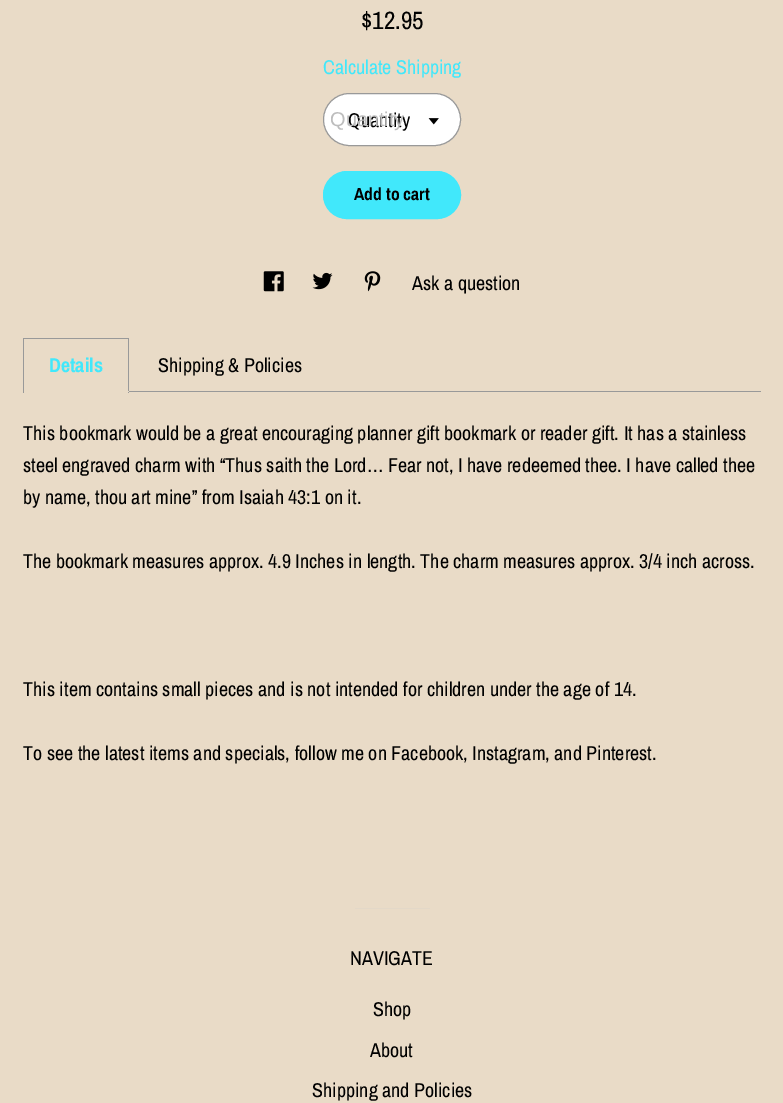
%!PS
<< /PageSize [783 1103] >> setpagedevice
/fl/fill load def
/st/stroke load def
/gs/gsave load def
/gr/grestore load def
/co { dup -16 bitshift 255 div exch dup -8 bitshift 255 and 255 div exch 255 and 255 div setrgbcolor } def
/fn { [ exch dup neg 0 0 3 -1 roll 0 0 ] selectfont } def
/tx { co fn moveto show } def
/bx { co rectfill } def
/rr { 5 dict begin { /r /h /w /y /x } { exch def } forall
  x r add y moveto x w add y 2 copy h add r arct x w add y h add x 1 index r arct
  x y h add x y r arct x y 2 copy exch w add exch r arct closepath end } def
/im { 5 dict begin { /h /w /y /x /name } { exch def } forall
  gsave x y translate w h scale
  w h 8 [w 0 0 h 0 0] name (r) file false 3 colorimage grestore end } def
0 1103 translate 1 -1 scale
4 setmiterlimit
0 0 783 1103 16#E9DBC7 bx
16#FFFFFF co
323.5 93.5 137 52 26 rr gs fl gr
16#999999 co
st
(media/1.raw) 428 118 11 7 im
16#41E8FB co
323.5 171.5 137 47 23.5 rr gs fl gr
st
(media/2.raw) 263 271 21 21 im
(media/3.raw) 312 272 21 18 im
(media/4.raw) 364 271 17 21 im
129 391 632 1 16#999999 bx
23 338 106 1 16#999999 bx
128 338 1 55 16#999999 bx
128 391 1 1 16#E9DBC7 bx
23 338 1 55 16#999999 bx
355 908 75 1 16#E3D8C8 bx
($12.95) 361 29 /ArchivoNarrow-Regular 25 16#000000 tx
(Calculate Shipping) 323 74 /ArchivoNarrow-Regular 20 16#41E8FB tx
(Quantity) 348 127 /ArchivoNarrow-Regular 20 16#000000 tx
(Quantity) 330 126 /LiberationSans-Regular 20 16#BDBDBD tx
(Add to cart) 354 200 /ArchivoNarrow-Bold 17.5 16#000000 tx
(Ask a question) 412 290 /ArchivoNarrow-Regular 20 16#000000 tx
(Details) 49 372 /ArchivoNarrow-Bold 20 16#41E8FB tx
(Shipping & Policies) 158 372 /ArchivoNarrow-Regular 20 16#000000 tx
(This bookmark would be a great encouraging planner gift bookmark or reader gift. It has a stainless) 23 440 /ArchivoNarrow-Regular 20 16#000000 tx
(steel engraved charm with “Thus saith the Lord… Fear not, I have redeemed thee. I have called thee) 23 472 /ArchivoNarrow-Regular 20 16#000000 tx
(by name, thou art mine” from Isaiah 43:1 on it.) 23 504 /ArchivoNarrow-Regular 20 16#000000 tx
(The bookmark measures approx. 4.9 Inches in length. The charm measures approx. 3/4 inch across.) 23 568 /ArchivoNarrow-Regular 20 16#000000 tx
(This item contains small pieces and is not intended for children under the age of 14.) 23 696 /ArchivoNarrow-Regular 20 16#000000 tx
(To see the latest items and specials, follow me on Facebook, Instagram, and Pinterest.) 23 760 /ArchivoNarrow-Regular 20 16#000000 tx
(NAVIGATE) 350 965 /ArchivoNarrow-Regular 20 16#000000 tx
(Shop) 373 1016 /ArchivoNarrow-Regular 20 16#000000 tx
(About) 370 1057 /ArchivoNarrow-Regular 20 16#000000 tx
(Shipping and Policies) 312 1097 /ArchivoNarrow-Regular 20 16#000000 tx
showpage
